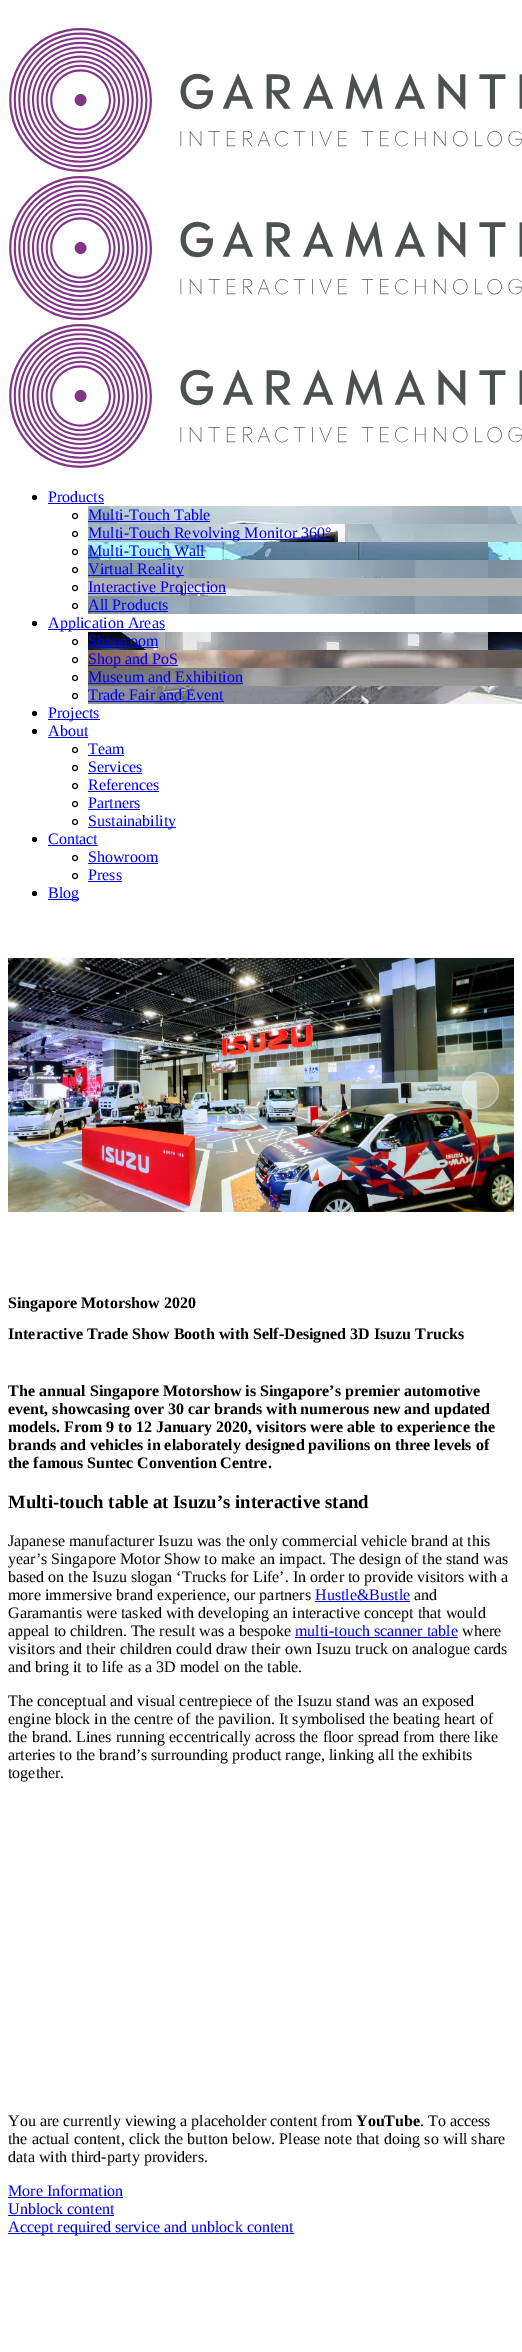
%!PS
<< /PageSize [522 2352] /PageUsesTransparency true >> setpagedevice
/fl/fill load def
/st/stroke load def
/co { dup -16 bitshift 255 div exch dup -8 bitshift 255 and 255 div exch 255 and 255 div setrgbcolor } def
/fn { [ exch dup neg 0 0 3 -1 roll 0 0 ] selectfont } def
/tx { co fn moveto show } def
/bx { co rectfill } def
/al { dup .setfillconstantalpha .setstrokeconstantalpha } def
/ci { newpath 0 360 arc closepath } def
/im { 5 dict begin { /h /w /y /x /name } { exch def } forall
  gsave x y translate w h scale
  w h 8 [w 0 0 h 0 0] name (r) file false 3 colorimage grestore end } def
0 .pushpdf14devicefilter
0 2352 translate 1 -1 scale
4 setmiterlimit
0 0 522 2352 16#FFFFFF bx
(media/1.raw) 9 28 513 144 im
(media/2.raw) 9 176 513 144 im
(media/1.raw) 9 324 513 144 im
16#000000 co
34.5 497.5 2.5 ci fl
48 503 56 1 16#0000EE bx
(media/3.raw) 88 506 434 18 im
16#000000 co
75 516 2.5 ci st
88 521 122 1 16#0000EE bx
(media/4.raw) 88 524 434 18 im
16#000000 co
75 534 2.5 ci st
88 539 243 1 16#0000EE bx
(media/5.raw) 88 542 434 18 im
16#000000 co
75 552 2.5 ci st
88 557 117 1 16#0000EE bx
(media/6.raw) 88 560 434 18 im
16#000000 co
75 570 2.5 ci st
88 575 96 1 16#0000EE bx
(media/7.raw) 88 578 434 18 im
16#000000 co
75 588 2.5 ci st
88 593 138 1 16#0000EE bx
(media/6.raw) 88 596 434 18 im
16#000000 co
75 606 2.5 ci st
88 611 80 1 16#0000EE bx
16#000000 co
34.5 623.5 2.5 ci fl
48 629 117 1 16#0000EE bx
(media/8.raw) 88 632 434 18 im
16#000000 co
75 642 2.5 ci st
88 647 70 1 16#0000EE bx
(media/9.raw) 88 650 434 18 im
16#000000 co
75 660 2.5 ci st
88 665 90 1 16#0000EE bx
(media/10.raw) 88 668 434 18 im
16#000000 co
75 678 2.5 ci st
88 683 155 1 16#0000EE bx
(media/11.raw) 88 686 434 18 im
16#000000 co
75 696 2.5 ci st
88 701 136 1 16#0000EE bx
16#000000 co
34.5 713.5 2.5 ci fl
48 719 52 1 16#0000EE bx
16#000000 co
34.5 731.5 2.5 ci fl
48 737 40 1 16#0000EE bx
16#000000 co
75 750 2.5 ci st
88 755 36 1 16#0000EE bx
16#000000 co
75 768 2.5 ci st
88 773 54 1 16#0000EE bx
16#000000 co
75 786 2.5 ci st
88 791 71 1 16#0000EE bx
16#000000 co
75 804 2.5 ci st
88 809 52 1 16#0000EE bx
16#000000 co
75 822 2.5 ci st
88 827 88 1 16#0000EE bx
16#000000 co
34.5 839.5 2.5 ci fl
48 845 50 1 16#0000EE bx
16#000000 co
75 858 2.5 ci st
88 863 70 1 16#0000EE bx
16#000000 co
75 876 2.5 ci st
88 881 34 1 16#0000EE bx
16#000000 co
34.5 893.5 2.5 ci fl
48 899 31 1 16#0000EE bx
(media/12.raw) 8 958 506 254 im
0.3 al
16#FFFFFF co
41.5 1090.5 18.5 ci fl
41.5 1090.5 18 ci st
480.5 1090.5 18.5 ci fl
480.5 1090.5 18 ci st
1 al
315 1601 95 1 16#0000EE bx
295 1637 163 1 16#0000EE bx
8 2197 115 1 16#0000EE bx
8 2215 106 1 16#0000EE bx
8 2233 286 1 16#0000EE bx
(Products) 48 502 /LiberationSerif-Regular 16 16#0000EE tx
(Multi-Touch Table) 88 520 /LiberationSerif-Regular 16 16#0000EE tx
(Multi-Touch Revolving Monitor 360°) 88 538 /LiberationSerif-Regular 16 16#0000EE tx
(Multi-Touch Wall) 88 556 /LiberationSerif-Regular 16 16#0000EE tx
(Virtual Reality) 88 574 /LiberationSerif-Regular 16 16#0000EE tx
(Interactive Projection) 88 592 /LiberationSerif-Regular 16 16#0000EE tx
(All Products) 88 610 /LiberationSerif-Regular 16 16#0000EE tx
(Application Areas) 48 628 /LiberationSerif-Regular 16 16#0000EE tx
(Showroom) 88 646 /LiberationSerif-Regular 16 16#0000EE tx
(Shop and PoS) 88 664 /LiberationSerif-Regular 16 16#0000EE tx
(Museum and Exhibition) 88 682 /LiberationSerif-Regular 16 16#0000EE tx
(Trade Fair and Event) 88 700 /LiberationSerif-Regular 16 16#0000EE tx
(Projects) 48 718 /LiberationSerif-Regular 16 16#0000EE tx
(About) 48 736 /LiberationSerif-Regular 16 16#0000EE tx
(Team) 88 754 /LiberationSerif-Regular 16 16#0000EE tx
(Services) 88 772 /LiberationSerif-Regular 16 16#0000EE tx
(References) 88 790 /LiberationSerif-Regular 16 16#0000EE tx
(Partners) 88 808 /LiberationSerif-Regular 16 16#0000EE tx
(Sustainability) 88 826 /LiberationSerif-Regular 16 16#0000EE tx
(Contact) 48 844 /LiberationSerif-Regular 16 16#0000EE tx
(Showroom) 88 862 /LiberationSerif-Regular 16 16#0000EE tx
(Press) 88 880 /LiberationSerif-Regular 16 16#0000EE tx
(Blog) 48 898 /LiberationSerif-Regular 16 16#0000EE tx
(Singapore Motorshow 2020) 8 1308 /LiberationSerif-Bold 16 16#000000 tx
(Interactive Trade Show Booth with Self-Designed 3D Isuzu Trucks) 8 1339 /LiberationSerif-Bold 16 16#000000 tx
(The annual Singapore Motorshow is Singapore’s premier automotive) 8 1396 /LiberationSerif-Bold 16 16#000000 tx
(event, showcasing over 30 car brands with numerous new and updated) 8 1414 /LiberationSerif-Bold 16 16#000000 tx
(models. From 9 to 12 January 2020, visitors were able to experience the) 8 1432 /LiberationSerif-Bold 16 16#000000 tx
(brands and vehicles in elaborately designed pavilions on three levels of) 8 1450 /LiberationSerif-Bold 16 16#000000 tx
(the famous Suntec Convention Centre.) 8 1468 /LiberationSerif-Bold 16 16#000000 tx
(Multi-touch table at Isuzu’s interactive stand) 8 1508 /LiberationSerif-Bold 18.75 16#000000 tx
(Japanese manufacturer Isuzu was the only commercial vehicle brand at this) 8 1546 /LiberationSerif-Regular 16 16#000000 tx
(year’s Singapore Motor Show to make an impact. The design of the stand was) 8 1564 /LiberationSerif-Regular 16 16#000000 tx
(based on the Isuzu slogan ‘Trucks for Life’. In order to provide visitors with a) 8 1582 /LiberationSerif-Regular 16 16#000000 tx
(more immersive brand experience, our partners) 8 1600 /LiberationSerif-Regular 16 16#000000 tx
(Hustle&Bustle) 315 1600 /LiberationSerif-Regular 16 16#0000EE tx
(and) 414 1600 /LiberationSerif-Regular 16 16#000000 tx
(Garamantis were tasked with developing an interactive concept that would) 8 1618 /LiberationSerif-Regular 16 16#000000 tx
(appeal to children. The result was a bespoke) 8 1636 /LiberationSerif-Regular 16 16#000000 tx
(multi-touch scanner table) 295 1636 /LiberationSerif-Regular 16 16#0000EE tx
(where) 462 1636 /LiberationSerif-Regular 16 16#000000 tx
(visitors and their children could draw their own Isuzu truck on analogue cards) 8 1654 /LiberationSerif-Regular 16 16#000000 tx
(and bring it to life as a 3D model on the table.) 8 1672 /LiberationSerif-Regular 16 16#000000 tx
(The conceptual and visual centrepiece of the Isuzu stand was an exposed) 8 1706 /LiberationSerif-Regular 16 16#000000 tx
(engine block in the centre of the pavilion. It symbolised the beating heart of) 8 1724 /LiberationSerif-Regular 16 16#000000 tx
(the brand. Lines running eccentrically across the floor spread from there like) 8 1742 /LiberationSerif-Regular 16 16#000000 tx
(arteries to the brand’s surrounding product range, linking all the exhibits) 8 1760 /LiberationSerif-Regular 16 16#000000 tx
(together.) 8 1778 /LiberationSerif-Regular 16 16#000000 tx
(You are currently viewing a placeholder content from) 8 2126 /LiberationSerif-Regular 16 16#000000 tx
(YouTube) 356 2126 /LiberationSerif-Bold 16 16#000000 tx
(. To access) 420 2126 /LiberationSerif-Regular 16 16#000000 tx
(the actual content, click the button below. Please note that doing so will share) 8 2144 /LiberationSerif-Regular 16 16#000000 tx
(data with third-party providers.) 8 2162 /LiberationSerif-Regular 16 16#000000 tx
(More Information) 8 2196 /LiberationSerif-Regular 16 16#0000EE tx
(Unblock content) 8 2214 /LiberationSerif-Regular 16 16#0000EE tx
(Accept required service and unblock content) 8 2232 /LiberationSerif-Regular 16 16#0000EE tx
.poppdf14devicefilter showpage
